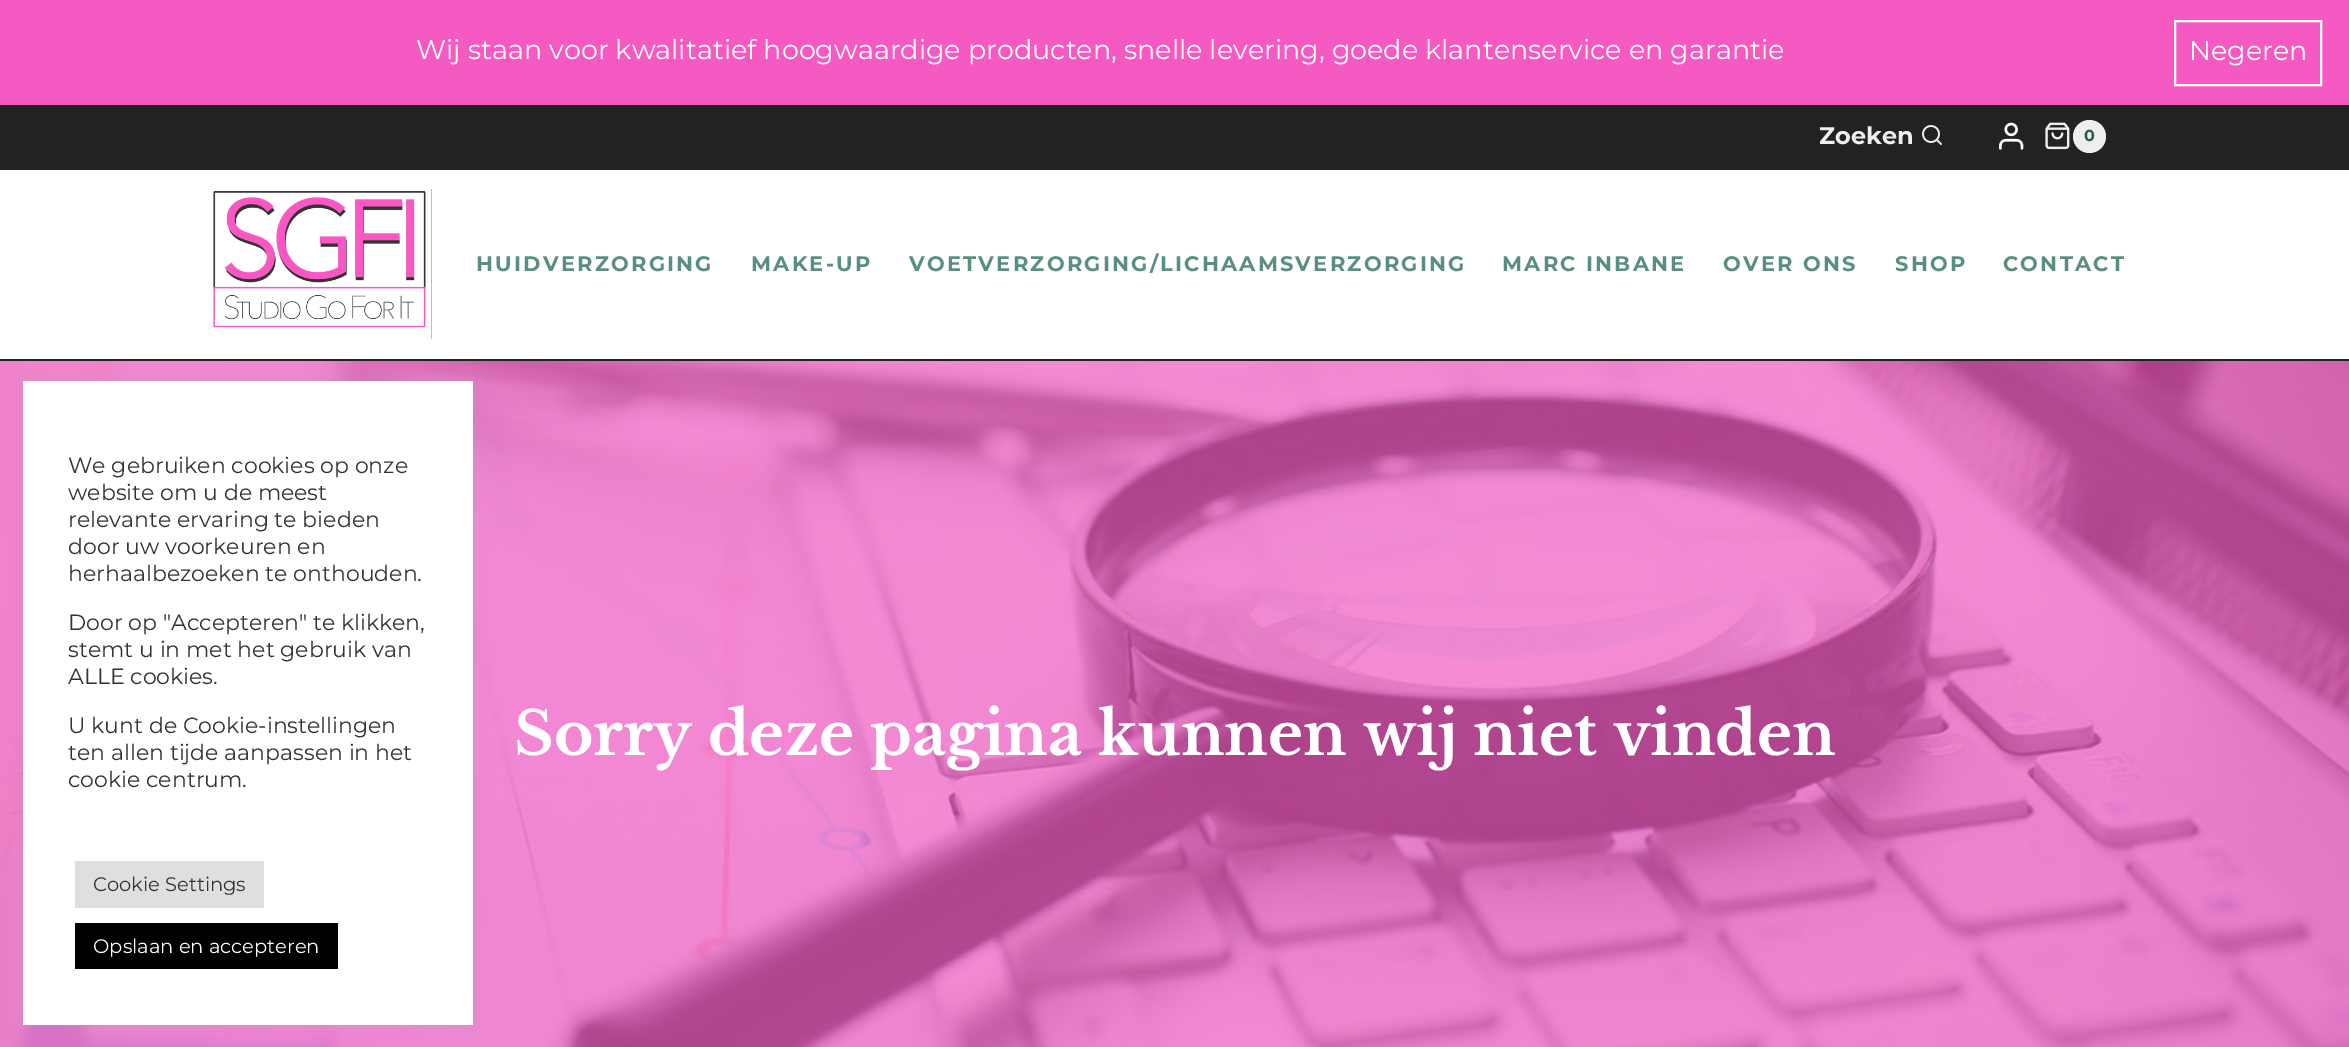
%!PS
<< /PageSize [2349 1047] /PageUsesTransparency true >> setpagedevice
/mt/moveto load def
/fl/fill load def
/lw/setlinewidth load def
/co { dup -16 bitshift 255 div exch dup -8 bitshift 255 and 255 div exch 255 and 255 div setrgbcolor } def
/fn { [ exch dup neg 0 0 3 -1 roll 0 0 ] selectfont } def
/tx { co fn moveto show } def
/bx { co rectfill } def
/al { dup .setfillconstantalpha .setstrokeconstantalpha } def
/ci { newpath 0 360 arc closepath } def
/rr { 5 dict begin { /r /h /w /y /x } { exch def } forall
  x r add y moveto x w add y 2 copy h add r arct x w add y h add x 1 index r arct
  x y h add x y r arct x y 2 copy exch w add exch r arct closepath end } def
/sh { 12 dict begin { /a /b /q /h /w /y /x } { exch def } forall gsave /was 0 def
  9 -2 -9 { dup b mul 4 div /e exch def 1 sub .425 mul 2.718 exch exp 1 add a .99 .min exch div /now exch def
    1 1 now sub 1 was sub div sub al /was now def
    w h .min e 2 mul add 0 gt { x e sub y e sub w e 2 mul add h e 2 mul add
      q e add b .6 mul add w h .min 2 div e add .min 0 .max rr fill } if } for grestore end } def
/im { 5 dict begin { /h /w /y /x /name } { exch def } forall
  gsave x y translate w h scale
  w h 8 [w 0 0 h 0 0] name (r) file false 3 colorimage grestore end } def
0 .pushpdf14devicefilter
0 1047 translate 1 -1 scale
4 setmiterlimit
0 0 2349 1047 16#FFFFFF bx
0 359 2349 2 16#222222 bx
(media/5.raw) 0 361 2349 686 im
16#ACABAB co
23 380 450 643 0 7.5 .3 sh
23 381 450 644 16#FFFFFF bx
75 861 189 47 16#DEDFE0 bx
75 923 263 46 16#000000 bx
0 0 2349 105 16#F55AC2 bx
16#FFFFFF co
2 lw
2175 21 146 64 rectstroke
0 105 2349 65 16#222222 bx
(media/1.raw) 1922 125 20 20 im
(media/2.raw) 1999 122 25 28 im
(media/3.raw) 2045 122 25 28 im
16#EEEEEE co
2089.5 136.5 16.5 ci fl
(media/4.raw) 213 189 219 150 im
(We gebruiken cookies op onze) 68 473 /Montserrat-Regular 22 16#333333 tx
(website om u de meest) 68 500 /Montserrat-Regular 22 16#333333 tx
(relevante ervaring te bieden) 68 527 /Montserrat-Regular 22 16#333333 tx
(door uw voorkeuren en) 68 554 /Montserrat-Regular 22 16#333333 tx
(herhaalbezoeken te onthouden.) 68 581 /Montserrat-Regular 22 16#333333 tx
(Door op "Accepteren" te klikken,) 68 630 /Montserrat-Regular 22 16#333333 tx
(stemt u in met het gebruik van) 68 657 /Montserrat-Regular 22 16#333333 tx
(ALLE cookies.) 68 684 /Montserrat-Regular 22 16#333333 tx
(U kunt de Cookie-instellingen) 68 733 /Montserrat-Regular 22 16#333333 tx
(ten allen tijde aanpassen in het) 68 760 /Montserrat-Regular 22 16#333333 tx
(cookie centrum.) 68 787 /Montserrat-Regular 22 16#333333 tx
(Cookie Settings) 93 891 /Montserrat-Regular 19.5 16#333333 tx
(Opslaan en accepteren) 93 953 /Montserrat-Regular 19.5 16#FFFFFF tx
(Wij staan voor kwalitatief hoogwaardige producten, snelle levering, goede klantenservice en garantie) 416 59 /Montserrat-Regular 27 16#FFFFFF tx
(Negeren) 2189 60 /Montserrat-Regular 27 16#FFFFFF tx
(Zoeken) 1819 144 /Montserrat-Bold 24 16#EEEEEE tx
(0) 2084 141 /Montserrat-Bold 16 16#275E52 tx
/Montserrat-Bold 21 fn
16#598F82 co
476 271 mt 2.25 0 (HUIDVERZORGING) ashow
751 271 mt 2.25 0 (MAKE-UP) ashow
909 271 mt 2.25 0 (VOETVERZORGING/LICHAAMSVERZORGING) ashow
1502 271 mt 2.25 0 (MARC INBANE) ashow
1723 271 mt 2.25 0 (OVER ONS) ashow
1895 271 mt 2.25 0 (SHOP) ashow
2003 271 mt 2.25 0 (CONTACT) ashow
(Sorry deze pagina kunnen wij niet vinden) 514 755 /LibreBaskerville-Bold 60 16#FFFFFF tx
.poppdf14devicefilter showpage
